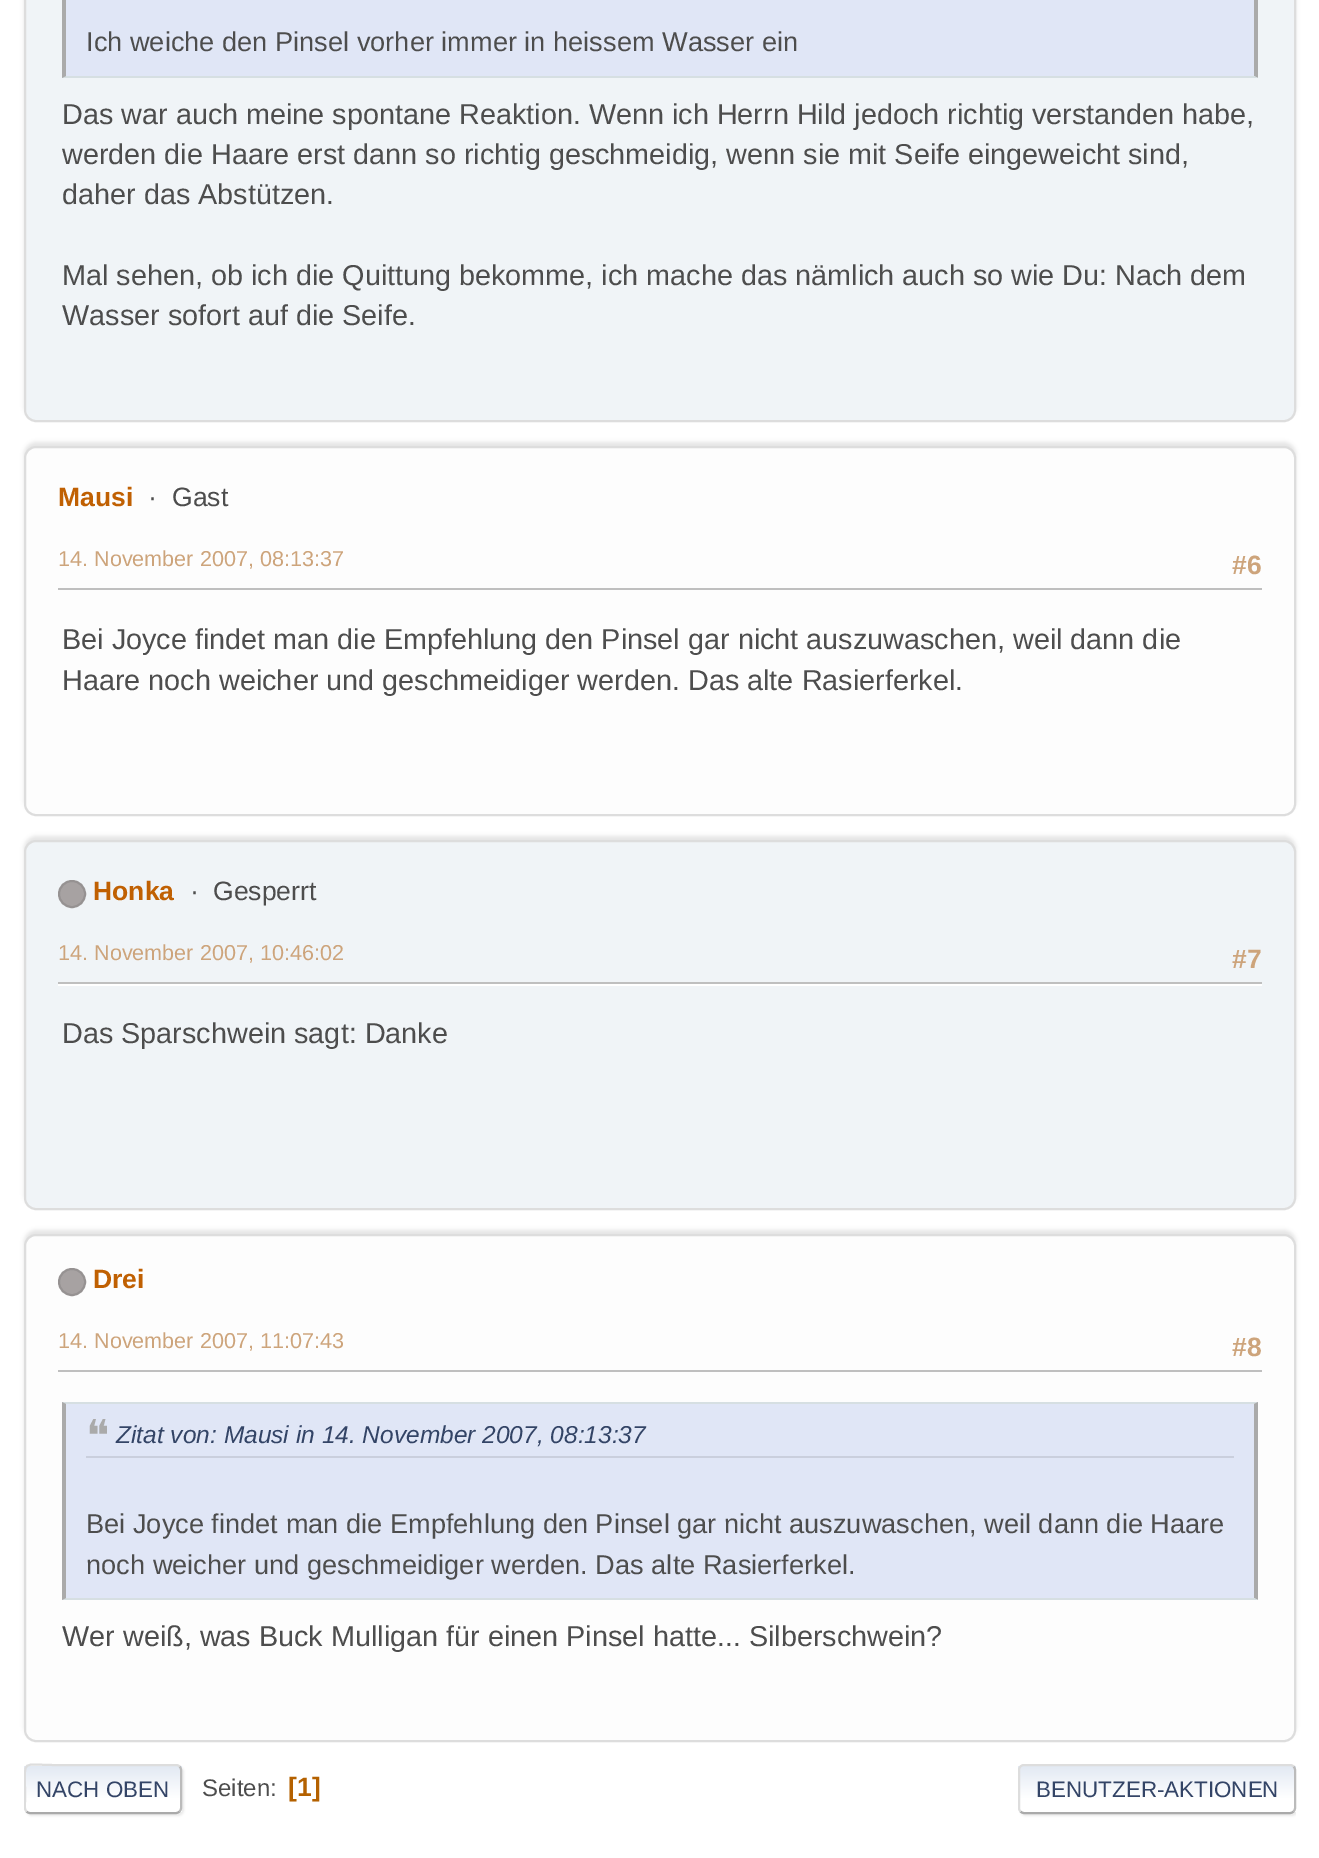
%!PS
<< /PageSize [1319 1858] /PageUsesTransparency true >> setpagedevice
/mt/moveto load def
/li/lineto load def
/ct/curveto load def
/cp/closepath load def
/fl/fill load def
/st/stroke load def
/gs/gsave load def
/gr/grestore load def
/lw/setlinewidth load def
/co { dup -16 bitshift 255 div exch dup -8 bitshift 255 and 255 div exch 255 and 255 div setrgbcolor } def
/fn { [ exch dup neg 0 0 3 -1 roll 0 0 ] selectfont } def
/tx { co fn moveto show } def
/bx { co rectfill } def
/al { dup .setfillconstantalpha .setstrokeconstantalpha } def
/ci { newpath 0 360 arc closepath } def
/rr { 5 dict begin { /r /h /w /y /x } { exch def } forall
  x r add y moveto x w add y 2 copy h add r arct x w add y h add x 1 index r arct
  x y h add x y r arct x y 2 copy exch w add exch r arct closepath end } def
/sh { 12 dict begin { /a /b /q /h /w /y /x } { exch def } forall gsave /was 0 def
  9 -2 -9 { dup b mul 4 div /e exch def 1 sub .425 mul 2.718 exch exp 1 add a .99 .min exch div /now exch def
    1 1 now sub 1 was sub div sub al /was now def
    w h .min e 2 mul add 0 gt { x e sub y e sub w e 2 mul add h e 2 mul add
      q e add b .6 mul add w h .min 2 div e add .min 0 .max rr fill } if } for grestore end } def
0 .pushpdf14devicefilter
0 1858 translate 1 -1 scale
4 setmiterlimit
0 0 1319 1858 16#FFFFFF bx
16#000000 co
24 -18 1272 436 12 2 .1 sh
16#F0F4F7 co
25 -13 1270 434 11 rr gs fl gr
16#DDDDDD co
2 lw
st
66 0 1188 76 16#E0E6F6 bx
16#AAAAAA co
1258 -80 mt 1258 78 li 1254 76 li 1254 -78 li cp fl
16#D6DFE2 co
1258 78 mt 62 78 li 66 76 li 1254 76 li cp fl
16#AAAAAA co
62 78 mt 62 -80 li 66 -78 li 66 76 li cp fl
16#000000 co
24 442 1272 370 12 2 .1 sh
16#FDFDFD co
25 447 1270 368 11 rr gs fl gr
16#DDDDDD co
st
58 588 1204 2 16#BFBFBF bx
16#000000 co
24 836 1272 370 12 2 .1 sh
16#F0F4F7 co
25 841 1270 368 11 rr gs fl gr
16#DDDDDD co
st
16#A7A2A2 co
72 894 13 ci gs fl gr
16#969292 co
st
58 984 1204 2 16#FFFFFF bx
58 982 1204 2 16#BFBFBF bx
16#000000 co
24 1230 1272 508 12 2 .1 sh
16#FDFDFD co
25 1235 1270 506 11 rr gs fl gr
16#DDDDDD co
st
16#A7A2A2 co
72 1282 13 ci gs fl gr
16#969292 co
st
58 1370 1204 2 16#BFBFBF bx
66 1404 1188 194 16#E0E6F6 bx
16#D6DFE2 co
62 1402 mt 1258 1402 li 1254 1404 li 66 1404 li cp fl
16#AAAAAA co
1258 1402 mt 1258 1600 li 1254 1598 li 1254 1404 li cp fl
16#D6DFE2 co
1258 1600 mt 62 1600 li 66 1598 li 1254 1598 li cp fl
16#AAAAAA co
62 1600 mt 62 1402 li 66 1404 li 66 1598 li cp fl
86 1456 1148 2 16#CACFDD bx
16#DDDDDD co
26 1766 158 50 6 1 .57 sh
16#FFFFFF co
24 1764 158 50 6 rr fl
gs
24 1764 158 50 6 rr clip newpath
gs 24 1766 mt 182 1766 li 182 1812 li 24 1812 li cp clip newpath
<< /ShadingType 2 /ColorSpace /DeviceRGB /Coords [103 1766 103 1812] /Extend [true true] /Function << /FunctionType 3 /Domain [0 1] /Functions [<< /FunctionType 2 /Domain [0 1] /C0 [.886 .914 .953] /C1 [1 1 1] /N 1 >> << /FunctionType 2 /Domain [0 1] /C0 [1 1 1] /C1 [1 1 1] /N 1 >>] /Bounds [.7] /Encode [0 1 0 1] >> >> shfill gr
gr
16#BBBBBB co
179.5 1766.5 mt 180.5 1767.5 181 1768.5 181 1770 ct 181 1808 li 181 1809.5 180.5 1810.5 179.5 1811.5 ct st
16#AAAAAA co
179.5 1811.5 mt 178.5 1812.5 177.5 1813 176 1813 ct 30 1813 li 28.5 1813 27.5 1812.5 26.5 1811.5 ct st
gs
24 1750 1272 78 rectclip
16#DDDDDD co
26.5 1811.5 mt 24 1809 25 1804.5 25 1801.5 ct 25 1789 li 25 1759 21 1765 54.5 1765 ct 176 1765 li 177.5 1765 178.5 1765.5 179.5 1766.5 ct st
gr
gs
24 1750 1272 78 rectclip
16#DDDDDD co
1020 1766 278 50 6 1 .57 sh
gr
gs
1018 1764 278 50 6 rr clip newpath
gs 1018 1766 mt 1296 1766 li 1296 1812 li 1018 1812 li cp clip newpath
<< /ShadingType 2 /ColorSpace /DeviceRGB /Coords [1157 1766 1157 1812] /Extend [true true] /Function << /FunctionType 3 /Domain [0 1] /Functions [<< /FunctionType 2 /Domain [0 1] /C0 [.886 .914 .953] /C1 [1 1 1] /N 1 >> << /FunctionType 2 /Domain [0 1] /C0 [1 1 1] /C1 [1 1 1] /N 1 >>] /Bounds [.7] /Encode [0 1 0 1] >> >> shfill gr
gr
16#BBBBBB co
1293.5 1766.5 mt 1294.5 1767.5 1295 1768.5 1295 1770 ct 1295 1808 li 1295 1809.5 1294.5 1810.5 1293.5 1811.5 ct st
16#AAAAAA co
1293.5 1811.5 mt 1292.5 1812.5 1291.5 1813 1290 1813 ct 1024 1813 li 1022.5 1813 1021.5 1812.5 1020.5 1811.5 ct st
16#DDDDDD co
1020.5 1811.5 mt 1019.5 1810.5 1019 1809.5 1019 1808 ct 1019 1770 li 1019 1768.5 1019.5 1767.5 1020.5 1766.5 ct 1021.5 1765.5 1022.5 1765 1024 1765 ct 1290 1765 li 1291.5 1765 1292.5 1765.5 1293.5 1766.5 ct st
(Ich weiche den Pinsel vorher immer in heissem Wasser ein) 86 51 /LiberationSans-Regular 27.2 16#4D4D4D tx
(Das war auch meine spontane Reaktion. Wenn ich Herrn Hild jedoch richtig verstanden habe,) 62 124 /LiberationSans-Regular 28.8 16#4D4D4D tx
(werden die Haare erst dann so richtig geschmeidig, wenn sie mit Seife eingeweicht sind,) 62 164 /LiberationSans-Regular 28.8 16#4D4D4D tx
(daher das Abstützen.) 62 204 /LiberationSans-Regular 28.8 16#4D4D4D tx
(Mal sehen, ob ich die Quittung bekomme, ich mache das nämlich auch so wie Du: Nach dem) 62 285 /LiberationSans-Regular 28.8 16#4D4D4D tx
(Wasser sofort auf die Seife.) 62 325 /LiberationSans-Regular 28.8 16#4D4D4D tx
(Mausi) 58 506 /LiberationSans-Bold 26.5 16#C06002 tx
(·) 148 506 /LiberationSans-Regular 26.5 16#4D4D4D tx
(Gast) 172 506 /LiberationSans-Regular 26.5 16#4D4D4D tx
(14. November 2007, 08:13:37) 58 566 /LiberationSans-Regular 21.6 16#CDA47B tx
(#6) 1232 574 /LiberationSans-Bold 26.5 16#CDA47B tx
(Bei Joyce findet man die Empfehlung den Pinsel gar nicht auszuwaschen, weil dann die) 62 649 /LiberationSans-Regular 28.8 16#4D4D4D tx
(Haare noch weicher und geschmeidiger werden. Das alte Rasierferkel.) 62 690 /LiberationSans-Regular 28.8 16#4D4D4D tx
(Honka) 93 900 /LiberationSans-Bold 26.5 16#C06002 tx
(·) 190 900 /LiberationSans-Regular 26.5 16#4D4D4D tx
(Gesperrt) 213 900 /LiberationSans-Regular 26.5 16#4D4D4D tx
(14. November 2007, 10:46:02) 58 960 /LiberationSans-Regular 21.6 16#CDA47B tx
(#7) 1232 968 /LiberationSans-Bold 26.5 16#CDA47B tx
(Das Sparschwein sagt: Danke) 62 1043 /LiberationSans-Regular 28.8 16#4D4D4D tx
(Drei) 93 1288 /LiberationSans-Bold 26.5 16#C06002 tx
(14. November 2007, 11:07:43) 58 1348 /LiberationSans-Regular 21.6 16#CDA47B tx
(#8) 1232 1356 /LiberationSans-Bold 26.5 16#CDA47B tx
(❝) 86 1451 /DejaVuSans-Regular 44 16#AAAAAA tx
(Zitat von: Mausi in 14. November 2007, 08:13:37) 116 1443 /LiberationSans-Italic 24.5 16#334466 tx
(Bei Joyce findet man die Empfehlung den Pinsel gar nicht auszuwaschen, weil dann die Haare) 86 1533 /LiberationSans-Regular 27.2 16#4D4D4D tx
(noch weicher und geschmeidiger werden. Das alte Rasierferkel.) 86 1574 /LiberationSans-Regular 27.2 16#4D4D4D tx
(Wer weiß, was Buck Mulligan für einen Pinsel hatte... Silberschwein?) 62 1646 /LiberationSans-Regular 28.8 16#4D4D4D tx
(NACH OBEN) 36 1797 /LiberationSans-Regular 22.4 16#334466 tx
(Seiten:) 202 1796 /LiberationSans-Regular 24 16#4D4D4D tx
([1]) 288 1796 /LiberationSans-Bold 26.5 16#B46100 tx
(BENUTZER-AKTIONEN) 1036 1797 /LiberationSans-Regular 22.4 16#334466 tx
.poppdf14devicefilter showpage
